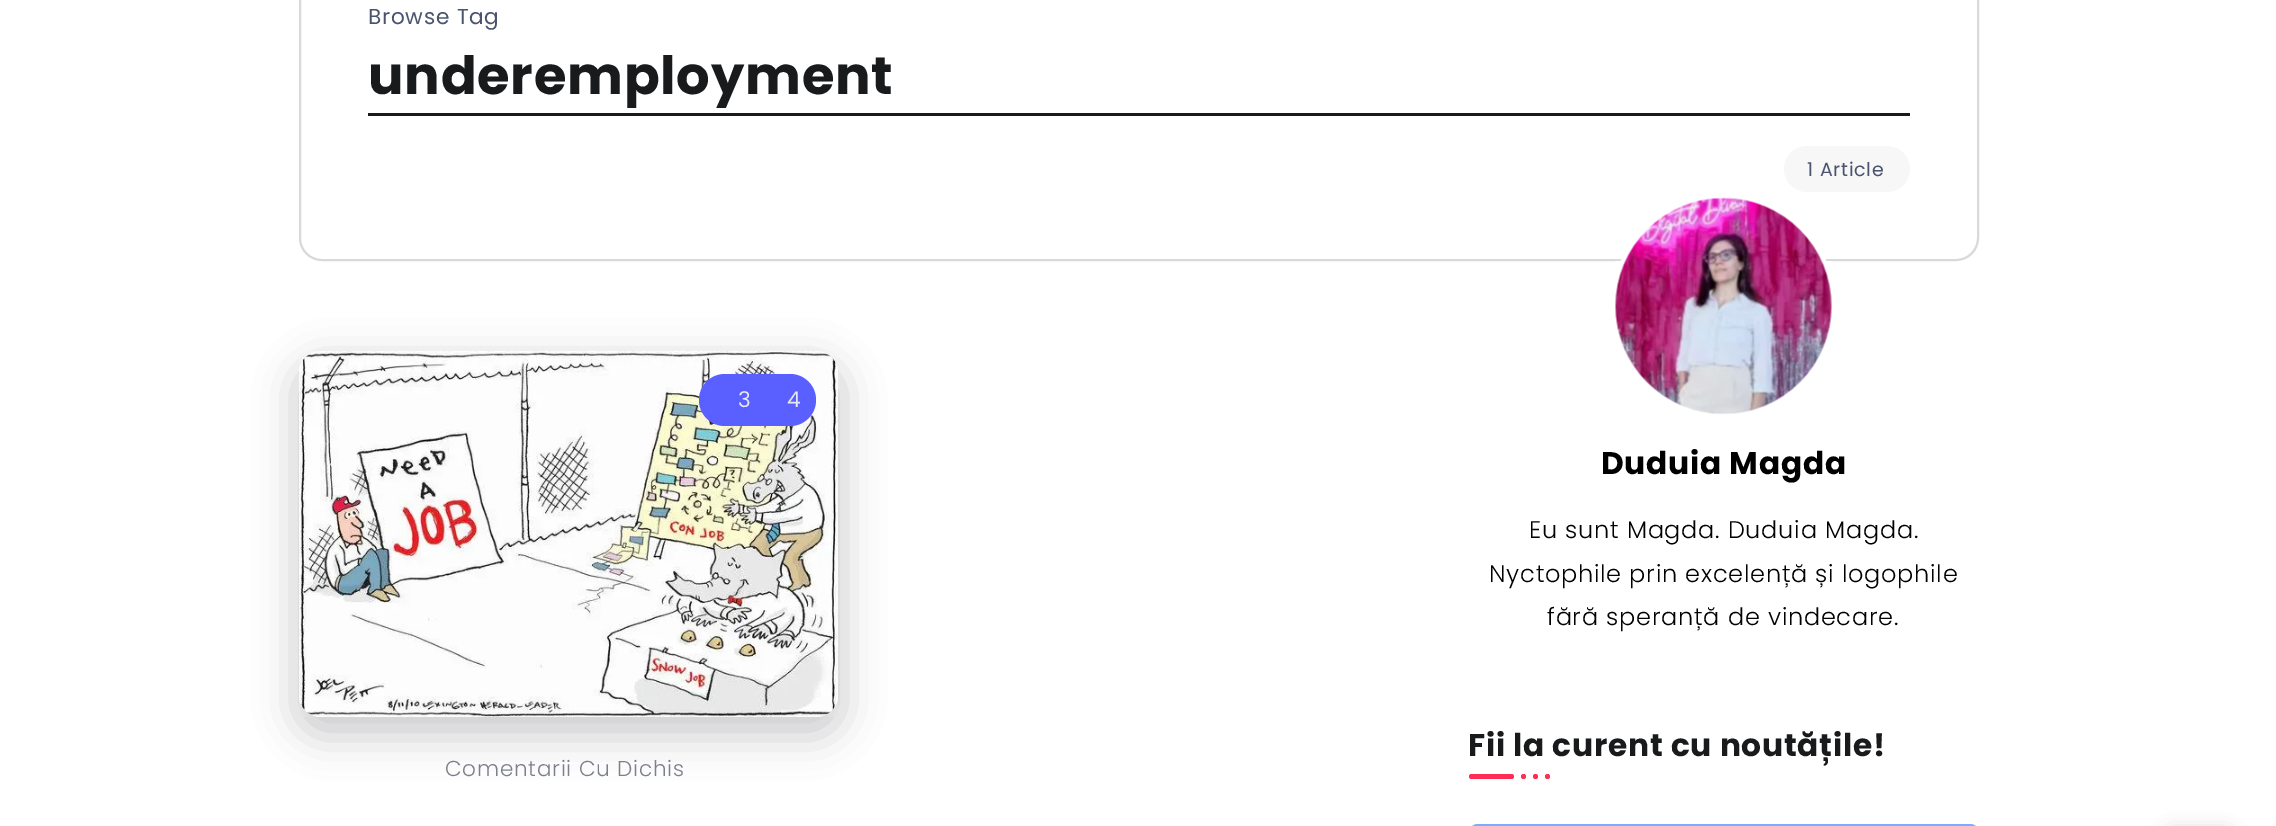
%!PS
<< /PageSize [2276 826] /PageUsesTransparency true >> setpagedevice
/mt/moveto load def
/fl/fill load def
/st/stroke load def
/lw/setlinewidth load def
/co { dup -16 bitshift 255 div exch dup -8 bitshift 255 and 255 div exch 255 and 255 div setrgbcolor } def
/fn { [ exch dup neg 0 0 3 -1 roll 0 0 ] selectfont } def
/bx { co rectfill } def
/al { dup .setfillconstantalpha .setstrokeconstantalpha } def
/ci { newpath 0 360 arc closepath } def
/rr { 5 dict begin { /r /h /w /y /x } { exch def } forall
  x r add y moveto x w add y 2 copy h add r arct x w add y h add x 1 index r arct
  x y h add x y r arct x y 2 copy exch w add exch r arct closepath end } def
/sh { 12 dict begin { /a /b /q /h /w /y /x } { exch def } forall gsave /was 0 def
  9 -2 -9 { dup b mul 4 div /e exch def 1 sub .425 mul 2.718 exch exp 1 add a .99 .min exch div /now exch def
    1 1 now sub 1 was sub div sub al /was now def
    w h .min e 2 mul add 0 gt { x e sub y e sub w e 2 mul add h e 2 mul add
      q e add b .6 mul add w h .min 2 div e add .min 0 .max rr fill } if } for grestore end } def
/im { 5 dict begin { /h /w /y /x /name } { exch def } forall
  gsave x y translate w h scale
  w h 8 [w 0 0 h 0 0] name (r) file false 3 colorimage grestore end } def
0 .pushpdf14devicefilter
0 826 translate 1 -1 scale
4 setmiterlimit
0 0 2276 826 16#FFFFFF bx
16#D9D9DA co
2 lw
300 -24 1678 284 22 rr st
368 113 1542 3 16#191A1B bx
16#F7F7F7 co
1784 146 126 46 23 rr fl
16#171920 co
293 360 552 378 29 19 .21 sh
(media/1.raw) 299 351 539 366 im
16#5960FF co
699 374 117 52 26 rr fl
16#FFFFFF co
5 lw
1723.5 306.5 110 ci st
(media/2.raw) 1615 197 217 218 im
16#FF2C54 co
1469 774 45 5 2.5 rr fl
1523.5 776.5 2.5 ci fl
1535.5 776.5 2.5 ci fl
1547.5 776.5 2.5 ci fl
16#79ADFF co
1469 824 510 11 9 rr fl
16#28292F co
2165 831 67 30 8 9 .24 sh
/Poppins-Regular 21.6 fn
16#4B546E co
368 24 mt .75 0 (Browse Tag) ashow
/Poppins-Bold 52.75 fn
16#191A1B co
368 94 mt .75 0 (underemployment) ashow
/Poppins-Regular 19 fn
16#4B546E co
1807 176 mt .75 0 (1 Article) ashow
/Poppins-Regular 21.6 fn
16#E7E7EF co
738 407 mt .75 0 (3) ashow
787 407 mt .75 0 (4) ashow
/Poppins-Light 21.6 fn
16#7C808B co
445 776 mt .75 0 (Comentarii Cu Dichis) ashow
/Poppins-Bold 31.25 fn
16#000000 co
1601 474 mt .75 0 (Duduia Magda) ashow
/Poppins-Light 24 fn
1529 538 mt .75 0 (Eu sunt Magda. Duduia Magda.) ashow
1489 582 mt .75 0 (Nyctophile prin excelență și logophile) ashow
1547 625 mt .75 0 (fără speranță de vindecare.) ashow
/Poppins-Bold 31.25 fn
16#191A1B co
1468 756 mt .75 0 (Fii la curent cu noutățile!) ashow
.poppdf14devicefilter showpage
